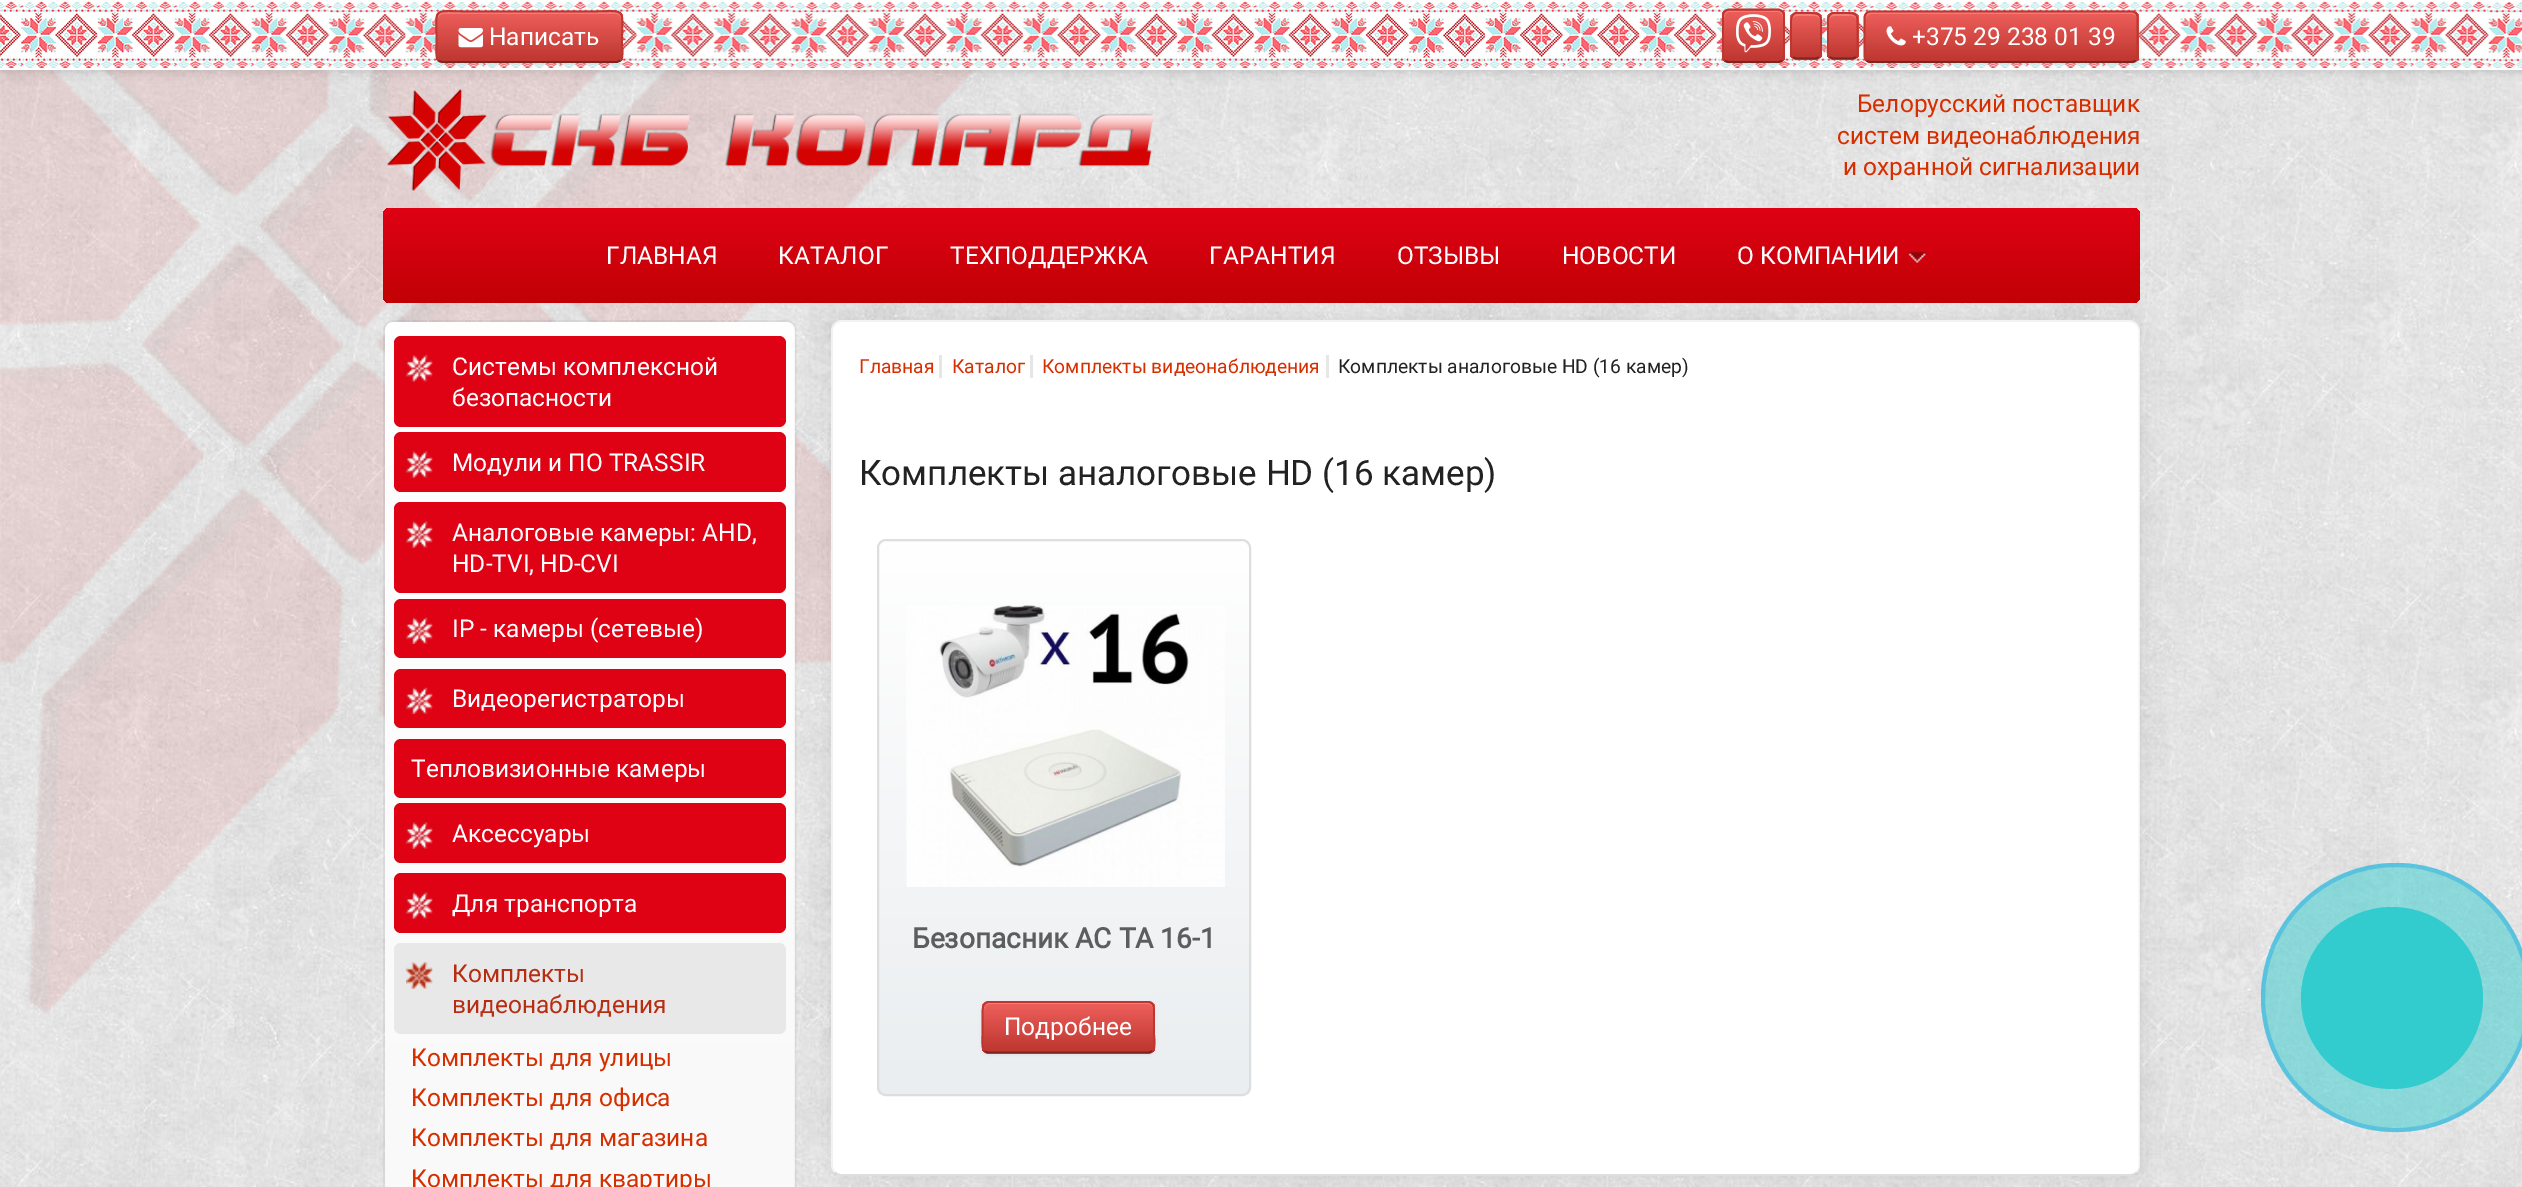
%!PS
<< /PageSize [2522 1187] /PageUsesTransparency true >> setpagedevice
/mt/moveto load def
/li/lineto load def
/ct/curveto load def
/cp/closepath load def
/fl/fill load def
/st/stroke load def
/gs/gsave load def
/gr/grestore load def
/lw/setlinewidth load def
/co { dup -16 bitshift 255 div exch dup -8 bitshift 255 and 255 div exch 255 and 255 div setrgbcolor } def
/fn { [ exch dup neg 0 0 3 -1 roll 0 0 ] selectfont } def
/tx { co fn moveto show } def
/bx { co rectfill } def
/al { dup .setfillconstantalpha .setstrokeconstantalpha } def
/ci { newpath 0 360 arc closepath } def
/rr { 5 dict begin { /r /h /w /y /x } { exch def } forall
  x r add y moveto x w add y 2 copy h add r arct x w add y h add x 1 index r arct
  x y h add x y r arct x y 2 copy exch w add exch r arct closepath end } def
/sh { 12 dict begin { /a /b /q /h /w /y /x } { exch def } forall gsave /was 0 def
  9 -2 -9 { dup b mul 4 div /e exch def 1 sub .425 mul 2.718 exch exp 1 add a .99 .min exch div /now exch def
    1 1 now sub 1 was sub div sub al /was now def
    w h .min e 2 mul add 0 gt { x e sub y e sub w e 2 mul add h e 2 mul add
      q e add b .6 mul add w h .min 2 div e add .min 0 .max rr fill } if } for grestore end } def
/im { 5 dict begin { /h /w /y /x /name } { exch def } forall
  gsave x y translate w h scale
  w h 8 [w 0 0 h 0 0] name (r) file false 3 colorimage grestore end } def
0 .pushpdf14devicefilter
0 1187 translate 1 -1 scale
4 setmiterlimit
0 0 2522 1187 16#FFFFFF bx
(media/1.raw) 0 70 2522 1117 im
(media/2.raw) 0 70 975 945 im
16#000000 co
0 5 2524 70 0 7 .05 sh
0 2 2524 70 0 2.5 .06 sh
(media/3.raw) 0 0 2522 68 im
0 68 2522 2 16#FFFFFF bx
16#000000 co
436 12 187 53 7 2 .05 sh
gs
436 11 187 52 7 rr clip newpath
gs 436 12 mt 623 12 li 623 61 li 436 61 li cp clip newpath
<< /ShadingType 2 /ColorSpace /DeviceRGB /Coords [529 12 529 61] /Extend [true true] /Function << /FunctionType 2 /Domain [0 1] /C0 [.933 .373 .357] /C1 [.741 .212 .184] /N 1 >> >> shfill gr
gr
0.2 al
16#FFFFFF co
443 14 mt 616 14 li 619 14 621 16 621 19 ct 621 17 li 621 14 619 12 616 12 ct 443 12 li 440 12 438 14 438 17 ct 438 19 li 438 16 440 14 443 14 ct cp fl
1 al
16#802420 co
1.8 lw
620.5 60.5 mt 619 61.5 617.5 62 616 62 ct 443 62 li 441 62 439.5 61.5 438.5 60.5 ct st
16#BD362F co
438.5 60.5 mt 435 57 436.5 47 436.5 43 ct 436.5 5 430.5 11.5 471.5 11.5 ct 587 11.5 li 628.5 11.5 622 5 622 43 ct 622 47 624 57 620.5 60.5 ct st
(media/4.raw) 458 28 25 20 im
16#000000 co
1722 11 63 54 7 2 .05 sh
16#DA4F49 co
1722 9 63 54 7 rr fl
gs
1722 9 63 54 7 rr clip newpath
gs 1722 11 mt 1785 11 li 1785 61 li 1722 61 li cp clip newpath
<< /ShadingType 2 /ColorSpace /DeviceRGB /Coords [1754 10 1754 61] /Extend [true true] /Function << /FunctionType 2 /Domain [0 1] /C0 [.933 .373 .357] /C1 [.741 .212 .184] /N 1 >> >> shfill gr
gr
16#F17E7B co
1729 12 mt 1778 12 li 1781 12 1783 15 1783 18 ct 1783 9 1777 11 1770 11 ct 1737 11 li 1730 11 1724 9 1724 18 ct 1724 15 1726 12 1729 12 ct cp fl
16#802420 co
1782.5 60.5 mt 1781 61.5 1779.5 62 1778 62 ct 1729 62 li 1727.5 62 1726 61.5 1724.5 60.5 ct st
16#BD362F co
1724.5 60.5 mt 1723.5 59 1723 57.5 1723 56 ct 1723 16 li 1723 14 1723.5 12.5 1724.5 11.5 ct 1726 10.5 1727.5 9.5 1729 9.5 ct 1778 9.5 li 1779.5 9.5 1781 10.5 1782.5 11.5 ct 1783.5 12.5 1784 14 1784 16 ct 1784 56 li 1784 57.5 1783.5 59 1782.5 60.5 ct st
(media/5.raw) 1736 14 35 39 im
16#000000 co
1790 14 32 47 7 2 .05 sh
16#DA4F49 co
1790 12 32 48 7 rr fl
gs
1790 12 32 48 7 rr clip newpath
gs 1790 14 mt 1822 14 li 1822 58 li 1790 58 li cp clip newpath
<< /ShadingType 2 /ColorSpace /DeviceRGB /Coords [1806 14 1806 58] /Extend [true true] /Function << /FunctionType 2 /Domain [0 1] /C0 [.933 .373 .357] /C1 [.741 .212 .184] /N 1 >> >> shfill gr
gr
0.2 al
16#FFFFFF co
1797 16 mt 1815 16 li 1818 16 1820 18 1820 21 ct 1820 14.5 1818 14 1812 14 ct 1800 14 li 1794 14 1792 14.5 1792 21 ct 1792 18 1794 16 1797 16 ct cp fl
1 al
16#802420 co
1819 57 mt 1818 58 1816.5 58.5 1815 58.5 ct 1797 58.5 li 1795.5 58.5 1794 58 1793 57 ct st
16#BD362F co
1793 57 mt 1790.5 54.5 1791 50 1791 47 ct 1791 25 li 1791 20.5 1790.5 14.5 1796 13 ct 1806 13 li 1822.5 13 1821 13.5 1821 30.5 ct 1821 47 li 1821 50 1821.5 54.5 1819 57 ct st
16#000000 co
1827 14 32 47 7 2 .05 sh
16#DA4F49 co
1827 12 32 48 7 rr fl
gs
1827 12 32 48 7 rr clip newpath
gs 1827 14 mt 1859 14 li 1859 58 li 1827 58 li cp clip newpath
<< /ShadingType 2 /ColorSpace /DeviceRGB /Coords [1843 14 1843 58] /Extend [true true] /Function << /FunctionType 2 /Domain [0 1] /C0 [.933 .373 .357] /C1 [.741 .212 .184] /N 1 >> >> shfill gr
gr
0.2 al
16#FFFFFF co
1834 16 mt 1852 16 li 1854 16 1857 18 1857 21 ct 1857 14.5 1855 14 1849 14 ct 1837 14 li 1831 14 1829 14.5 1829 21 ct 1829 18 1831 16 1834 16 ct cp fl
1 al
16#802420 co
1856 57 mt 1854.5 58 1853 58.5 1851.5 58.5 ct 1834 58.5 li 1832.5 58.5 1831 58 1829.5 57 ct st
16#BD362F co
1829.5 57 mt 1827 54.5 1828 50 1828 47 ct 1828 25 li 1828 20.5 1827 14.5 1833 13 ct 1843 13 li 1859 13 1857.5 13.5 1857.5 30.5 ct 1857.5 47 li 1857.5 50 1858.5 54.5 1856 57 ct st
16#000000 co
1864 12 275 53 7 2 .05 sh
16#DA4F49 co
1864 11 275 52 7 rr fl
gs
1864 11 275 52 7 rr clip newpath
gs 1864 12 mt 2139 12 li 2139 61 li 1864 61 li cp clip newpath
<< /ShadingType 2 /ColorSpace /DeviceRGB /Coords [2001 12 2001 61] /Extend [true true] /Function << /FunctionType 2 /Domain [0 1] /C0 [.933 .373 .357] /C1 [.741 .212 .184] /N 1 >> >> shfill gr
gr
0.2 al
16#FFFFFF co
1871 14 mt 2132 14 li 2134 14 2137 16 2137 19 ct 2137 17 li 2137 14 2135 12 2132 12 ct 1871 12 li 1868 12 1866 14 1866 17 ct 1866 19 li 1866 16 1868 14 1871 14 ct cp fl
1 al
16#802420 co
2136 60.5 mt 2134.5 61.5 2133 62 2131.5 62 ct 1871 62 li 1869 62 1867.5 61.5 1866.5 60.5 ct st
16#BD362F co
1866.5 60.5 mt 1865.5 59 1864.5 57.5 1864.5 56 ct 1864.5 17.5 li 1864.5 16 1865.5 14.5 1866.5 13 ct 1867.5 12 1869 11.5 1871 11.5 ct 2131.5 11.5 li 2133 11.5 2134.5 12 2136 13 ct 2137 14.5 2137.5 16 2137.5 17.5 ct 2137.5 56 li 2137.5 57.5 2137 59 2136 60.5 ct st
(media/6.raw) 1886 26 20 20 im
(media/7.raw) 387 89 767 102 im
16#000000 co
831 320 1309 856 11 13 .07 sh
gs 383 208 1757 95 7 rr clip newpath
<< /ShadingType 2 /ColorSpace /DeviceRGB /Coords [1262 208 1262 303] /Extend [true true] /Function << /FunctionType 2 /Domain [0 1] /C0 [.875 .008 .078] /C1 [.757 .004 .02] /N 1 >> >> shfill gr
(media/8.raw) 1908 251 18 12 im
gs 385 322 410 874 9 rr clip newpath
<< /ShadingType 2 /ColorSpace /DeviceRGB /Coords [590 322 590 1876] /Extend [true true] /Function << /FunctionType 2 /Domain [0 1] /C0 [1 1 1] /C1 [.961 .961 .961] /N 1 >> >> shfill gr
0.05 al
387 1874 mt 385 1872.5 384 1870 384 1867 ct 384 331 li 384 328 385 325.5 387 324 ct 388.5 322 391 321 394 321 ct 786 321 li 788.5 321 791 322 792.5 324 ct 794.5 325.5 795.5 328 795.5 331 ct 795.5 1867 li 795.5 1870 794.5 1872.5 792.5 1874 ct st
1 al
16#DF0214 co
394 336 392 91 7 rr fl
(media/9.raw) 406 355 27 27 im
394 432 392 60 7 rr fl
(media/10.raw) 406 451 27 27 im
394 502 392 91 7 rr fl
(media/10.raw) 406 521 27 27 im
394 599 392 59 7 rr fl
(media/11.raw) 406 617 27 27 im
394 669 392 59 7 rr fl
(media/11.raw) 406 687 27 27 im
394 739 392 59 7 rr fl
394 803 392 60 7 rr fl
(media/10.raw) 406 822 27 27 im
394 873 392 60 7 rr fl
(media/10.raw) 406 892 27 27 im
16#E8E8E8 co
394 943 392 91 7 rr fl
(media/12.raw) 406 962 27 27 im
16#FFFFFF co
831 320 1309 856 11 rr fl
0.13 al
16#000000 co
2136.5 1172.5 mt 2135 1174 2132.5 1175 2130 1175 ct 842 1175 li 839 1175 836.5 1174 835 1172.5 ct st
0.05 al
835 1172.5 mt 833 1170.5 832 1168 832 1165.5 ct 832 331 li 832 328 833 325.5 835 324 ct 836.5 322 839 321 842 321 ct 2130 321 li 2132.5 321 2135 322 2136.5 324 ct 2138.5 325.5 2139.5 328 2139.5 331 ct 2139.5 1165.5 li 2139.5 1168 2138.5 1170.5 2136.5 1172.5 ct st
1 al
939 355 3 23 16#E6E6E6 bx
1030 355 3 23 16#E6E6E6 bx
1326 355 3 23 16#E7E7E7 bx
gs
877 539 374 557 9 rr clip newpath
gs 877 541 mt 1251 541 li 1251 1094 li 877 1094 li cp clip newpath
<< /ShadingType 2 /ColorSpace /DeviceRGB /Coords [1064 541 1064 1094] /Extend [true true] /Function << /FunctionType 2 /Domain [0 1] /C0 [1 1 1] /C1 [.918 .933 .941] /N 1 >> >> shfill gr
gr
16#DDDEDF co
2 lw
878 540 372 555 8 rr st
(media/13.raw) 906 605 319 282 im
16#000000 co
982 1003 173 52 7 2 .05 sh
16#DA4F49 co
982 1001 173 53 7 rr fl
gs
982 1001 173 53 7 rr clip newpath
gs 982 1003 mt 1155 1003 li 1155 1052 li 982 1052 li cp clip newpath
<< /ShadingType 2 /ColorSpace /DeviceRGB /Coords [1068 1003 1068 1052] /Extend [true true] /Function << /FunctionType 2 /Domain [0 1] /C0 [.933 .373 .357] /C1 [.741 .212 .184] /N 1 >> >> shfill gr
gr
0.2 al
16#FFFFFF co
989 1004 mt 1148 1004 li 1151 1004 1153 1007 1153 1010 ct 1153 1008 li 1153 1005 1151 1003 1148 1003 ct 989 1003 li 986 1003 984 1005 984 1008 ct 984 1010 li 984 1007 986 1004 989 1004 ct cp fl
1 al
16#802420 co
1.8 lw
1152.5 1051 mt 1151 1052 1149.5 1052.5 1148 1052.5 ct 989 1052.5 li 987 1052.5 985.5 1052 984.5 1051 ct st
16#BD362F co
984.5 1051 mt 981 1047.5 982.5 1037.5 982.5 1033.5 ct 982.5 1014.5 li 982.5 1009.5 982 1002 989 1002 ct 1148 1002 li 1155 1002 1154 1009.5 1154 1014.5 ct 1154 1033.5 li 1154 1037.5 1156 1047.5 1152.5 1051 ct st
0.5 al
16#32CBCE co
2261 863 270 269 134.5 rr fl
16#29AEE3 co
4 lw
2263 865 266 265 132.5 rr st
1 al
16#32CBCE co
2392 998 91 ci fl
(Написать) 489 45 /Roboto-Regular 24.5 16#FFFFFF tx
(+375 29 238 01 39) 1912 45 /Roboto-Regular 24.5 16#FFFFFF tx
(Белорусский поставщик) 1857 112 /Roboto-Regular 24.5 16#D72E00 tx
(систем видеонаблюдения) 1837 144 /Roboto-Regular 24.5 16#D72E00 tx
(и охранной сигнализации) 1843 175 /Roboto-Regular 24.5 16#D72E00 tx
(ГЛАВНАЯ) 606 264 /Roboto-Regular 24.5 16#FFFFFF tx
(КАТАЛОГ) 778 264 /Roboto-Regular 24.5 16#FFFFFF tx
(ТЕХПОДДЕРЖКА) 950 264 /Roboto-Regular 24.5 16#FFFFFF tx
(ГАРАНТИЯ) 1209 264 /Roboto-Regular 24.5 16#FFFFFF tx
(ОТЗЫВЫ) 1397 264 /Roboto-Regular 24.5 16#FFFFFF tx
(НОВОСТИ) 1562 264 /Roboto-Regular 24.5 16#FFFFFF tx
(О КОМПАНИИ) 1737 264 /Roboto-Regular 24.5 16#FFFFFF tx
(Системы комплексной) 452 375 /Roboto-Regular 24.5 16#FFFFFF tx
(безопасности) 452 406 /Roboto-Regular 24.5 16#FFFFFF tx
(Модули и ПО TRASSIR) 452 471 /Roboto-Regular 24.5 16#FFFFFF tx
(Аналоговые камеры: AHD,) 452 541 /Roboto-Regular 24.5 16#FFFFFF tx
(HD-TVI, HD-CVI) 452 572 /Roboto-Regular 24.5 16#FFFFFF tx
(IP - камеры \(сетевые\)) 452 637 /Roboto-Regular 24.5 16#FFFFFF tx
(Видеорегистраторы) 452 707 /Roboto-Regular 24.5 16#FFFFFF tx
(Тепловизионные камеры) 411 777 /Roboto-Regular 24.5 16#FFFFFF tx
(Аксессуары) 452 842 /Roboto-Regular 24.5 16#FFFFFF tx
(Для транспорта) 452 912 /Roboto-Regular 24.5 16#FFFFFF tx
(Комплекты) 452 982 /Roboto-Regular 24.5 16#B72D12 tx
(видеонаблюдения) 452 1013 /Roboto-Regular 24.5 16#B72D12 tx
(Комплекты для улицы) 411 1066 /Roboto-Regular 24.5 16#D72E00 tx
(Комплекты для офиса) 411 1106 /Roboto-Regular 24.5 16#D72E00 tx
(Комплекты для магазина) 411 1146 /Roboto-Regular 24.5 16#D72E00 tx
(Комплекты для квартиры) 411 1187 /Roboto-Regular 24.5 16#D72E00 tx
(Главная) 859 373 /Roboto-Regular 19.25 16#D72E00 tx
(Каталог) 952 373 /Roboto-Regular 19.25 16#D72E00 tx
(Комплекты видеонаблюдения) 1042 373 /Roboto-Regular 19.25 16#D72E00 tx
(Комплекты аналоговые HD \(16 камер\)) 1338 373 /Roboto-Regular 19.25 16#222222 tx
(Комплекты аналоговые HD \(16 камер\)) 859 485 /Roboto-Regular 35 16#222222 tx
(Безопасник AC TA 16-1) 912 948 /Roboto-Bold 28 16#5D5D5D tx
(Подробнее) 1004 1035 /Roboto-Regular 24.5 16#FFFFFF tx
.poppdf14devicefilter showpage
